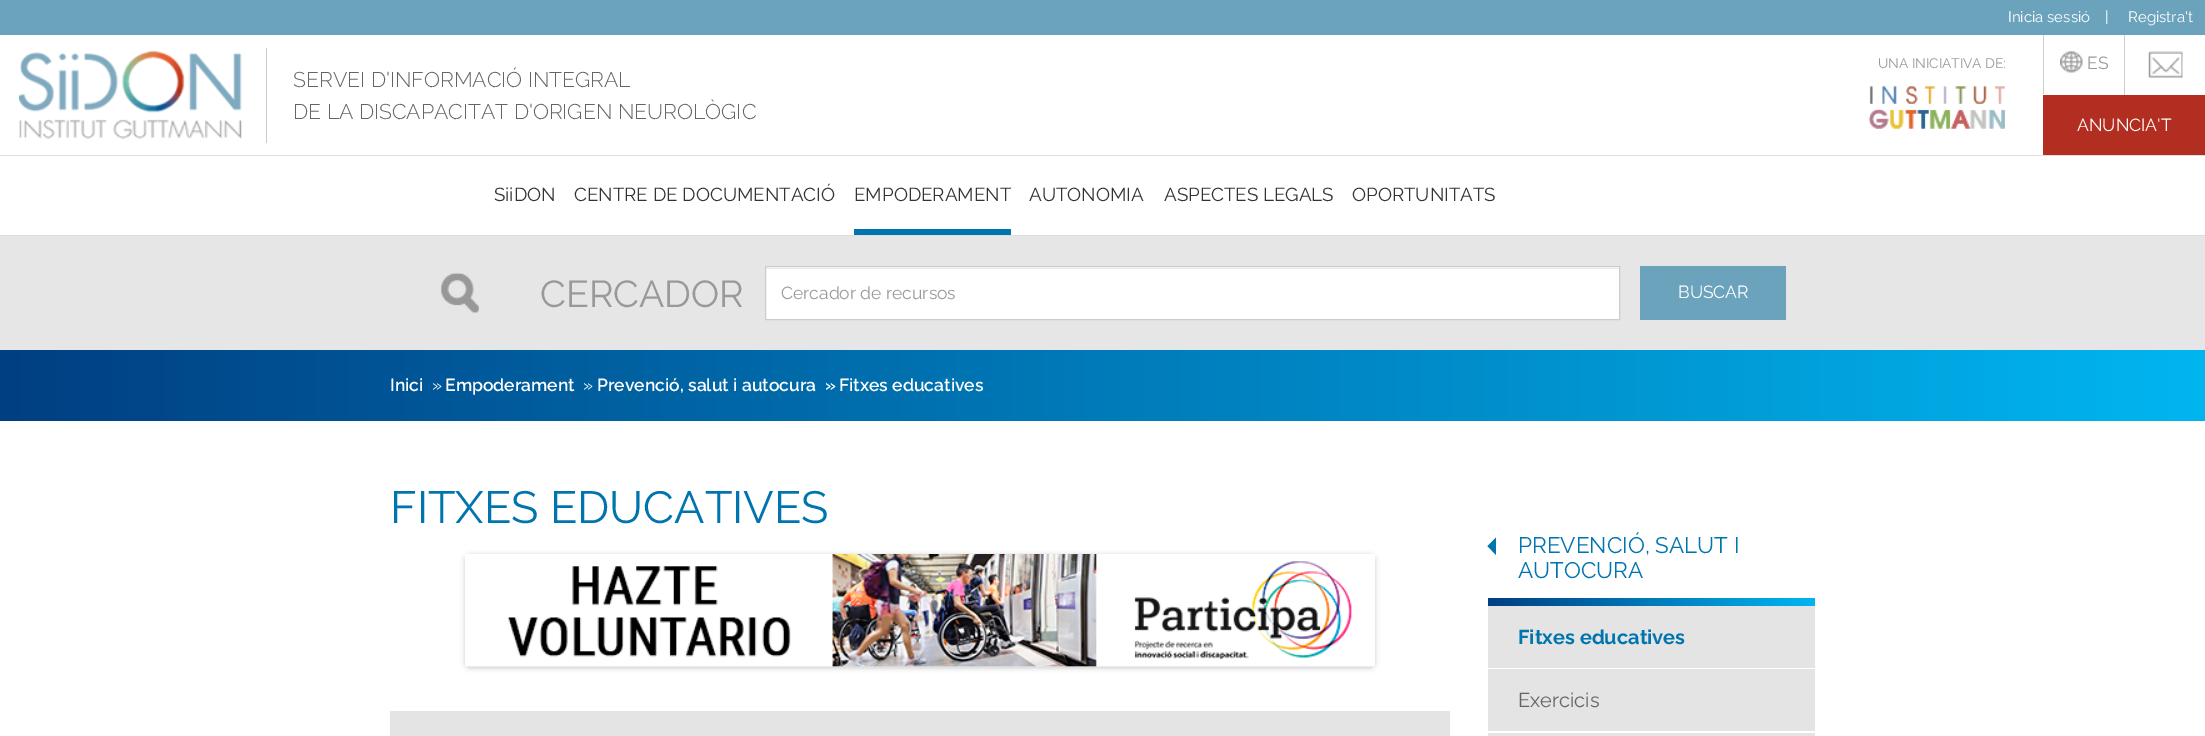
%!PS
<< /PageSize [2205 736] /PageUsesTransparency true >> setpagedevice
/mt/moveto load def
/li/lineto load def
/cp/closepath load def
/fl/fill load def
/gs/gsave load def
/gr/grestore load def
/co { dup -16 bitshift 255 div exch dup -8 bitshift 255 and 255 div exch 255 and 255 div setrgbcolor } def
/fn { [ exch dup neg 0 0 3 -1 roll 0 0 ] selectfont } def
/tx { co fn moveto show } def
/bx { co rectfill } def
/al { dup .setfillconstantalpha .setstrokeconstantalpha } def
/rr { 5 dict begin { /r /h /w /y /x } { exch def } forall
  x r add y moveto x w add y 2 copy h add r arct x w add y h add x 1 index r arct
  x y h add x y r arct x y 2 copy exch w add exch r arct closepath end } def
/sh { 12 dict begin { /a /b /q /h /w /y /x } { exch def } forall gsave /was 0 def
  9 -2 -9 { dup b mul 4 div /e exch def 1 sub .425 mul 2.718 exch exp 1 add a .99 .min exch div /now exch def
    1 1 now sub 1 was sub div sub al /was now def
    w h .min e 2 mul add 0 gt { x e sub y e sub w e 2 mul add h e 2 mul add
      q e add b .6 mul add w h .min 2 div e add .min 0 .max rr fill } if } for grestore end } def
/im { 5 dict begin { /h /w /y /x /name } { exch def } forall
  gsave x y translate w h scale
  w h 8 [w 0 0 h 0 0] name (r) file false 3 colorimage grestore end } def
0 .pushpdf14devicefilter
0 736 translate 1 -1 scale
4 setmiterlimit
0 0 2205 736 16#FFFFFF bx
0 0 2205 35 16#6BA3BC bx
(media/1.raw) 1868 86 137 43 im
2043 35 1 59 16#CCCCCC bx
(media/2.raw) 2060 51 23 22 im
2124 35 1 60 16#CCCCCC bx
(media/3.raw) 2148 51 35 27 im
2043 95 162 60 16#B22E20 bx
266 48 1 95 16#CCCCCC bx
(media/4.raw) 18 51 224 88 im
0 155 2205 1 16#DDDDDD bx
0 235 2205 1 16#DDDDDD bx
854 229 157 6 16#0074AE bx
0 236 2205 114 16#E6E6E6 bx
(media/5.raw) 441 272 38 41 im
766 267 853 52 16#FFFFFF bx
766 268 853 1 16#ECECEC bx
16#CCCCCC co
765.5 266.5 854 53 rectstroke
1640 266 146 54 16#6BA3BC bx
gs 0 350 mt 2205 350 li 2205 421 li 0 421 li cp clip newpath
<< /ShadingType 2 /ColorSpace /DeviceRGB /Coords [0 386 2205 386] /Extend [true true] /Function << /FunctionType 2 /Domain [0 1] /C0 [0 .247 .51] /C1 [0 .714 .941] /N 1 >> >> shfill gr
16#000000 co
465 555 910 113 5 2.5 .2 sh
(media/6.raw) 465 554 910 113 im
390 711 1060 25 16#E4E4E4 bx
16#0074AE co
1496 537.5 mt 1496 555 li 1487.5 546 li cp fl
gs 1488 598 mt 1815 598 li 1815 606 li 1488 606 li cp clip newpath
<< /ShadingType 2 /ColorSpace /DeviceRGB /Coords [1488 602 1815 602] /Extend [true true] /Function << /FunctionType 2 /Domain [0 1] /C0 [0 .247 .51] /C1 [0 .714 .941] /N 1 >> >> shfill gr
1488 606 327 62 16#E4E4E4 bx
1488 669 327 62 16#E4E4E4 bx
1488 733 327 3 16#E4E4E4 bx
(Inicia sessió) 2008 22 /Raleway-Regular 15 16#FFFFFF tx
(|) 2105 22 /Raleway-Regular 15 16#FFFFFF tx
(Registra't) 2128 22 /Raleway-Regular 15 16#FFFFFF tx
(UNA INICIATIVA DE:) 1878 68 /Raleway-Regular 13.75 16#999999 tx
(ES) 2087 69 /Raleway-Regular 17.5 16#999999 tx
(ANUNCIA'T) 2077 131 /Raleway-Regular 17.5 16#FFFFFF tx
(SERVEI D'INFORMACIÓ INTEGRAL) 293 87 /Raleway-Light 21.25 16#646464 tx
(DE LA DISCAPACITAT D'ORIGEN NEUROLÒGIC) 293 119 /Raleway-Light 21.25 16#646464 tx
(SiiDON) 494 201 /Raleway-Regular 18.75 16#333333 tx
(CENTRE DE DOCUMENTACIÓ) 574 201 /Raleway-Regular 18.75 16#333333 tx
(EMPODERAMENT) 854 201 /Raleway-Regular 18.75 16#333333 tx
(AUTONOMIA) 1029 201 /Raleway-Regular 18.75 16#333333 tx
(ASPECTES LEGALS) 1164 201 /Raleway-Regular 18.75 16#333333 tx
(OPORTUNITATS) 1352 201 /Raleway-Regular 18.75 16#333333 tx
(CERCADOR) 540 307 /Raleway-Regular 37.5 16#999999 tx
(Cercador de recursos) 781 299 /Raleway-Regular 17.5 16#999999 tx
(BUSCAR) 1678 298 /Raleway-Regular 17.5 16#FFFFFF tx
(Inici) 390 391 /Raleway-SemiBold 17.5 16#FFFFFF tx
(») 432 391 /Raleway-Regular 17.5 16#FFFFFF tx
(Empoderament) 445 391 /Raleway-SemiBold 17.5 16#FFFFFF tx
(») 583 391 /Raleway-Regular 17.5 16#FFFFFF tx
(Prevenció, salut i autocura) 597 391 /Raleway-SemiBold 17.5 16#FFFFFF tx
(») 825 391 /Raleway-SemiBold 17.5 16#FFFFFF tx
(Fitxes educatives) 839 391 /Raleway-SemiBold 17.5 16#FFFFFF tx
(FITXES EDUCATIVES) 390 523 /Raleway-Regular 45 16#0074AE tx
(PREVENCIÓ, SALUT I) 1518 553 /Raleway-Regular 22.5 16#0074AE tx
(AUTOCURA) 1518 578 /Raleway-Regular 22.5 16#0074AE tx
(Fitxes educatives) 1518 644 /Raleway-Bold 20 16#0074AE tx
(Exercicis) 1518 707 /Raleway-Regular 20 16#646464 tx
.poppdf14devicefilter showpage
